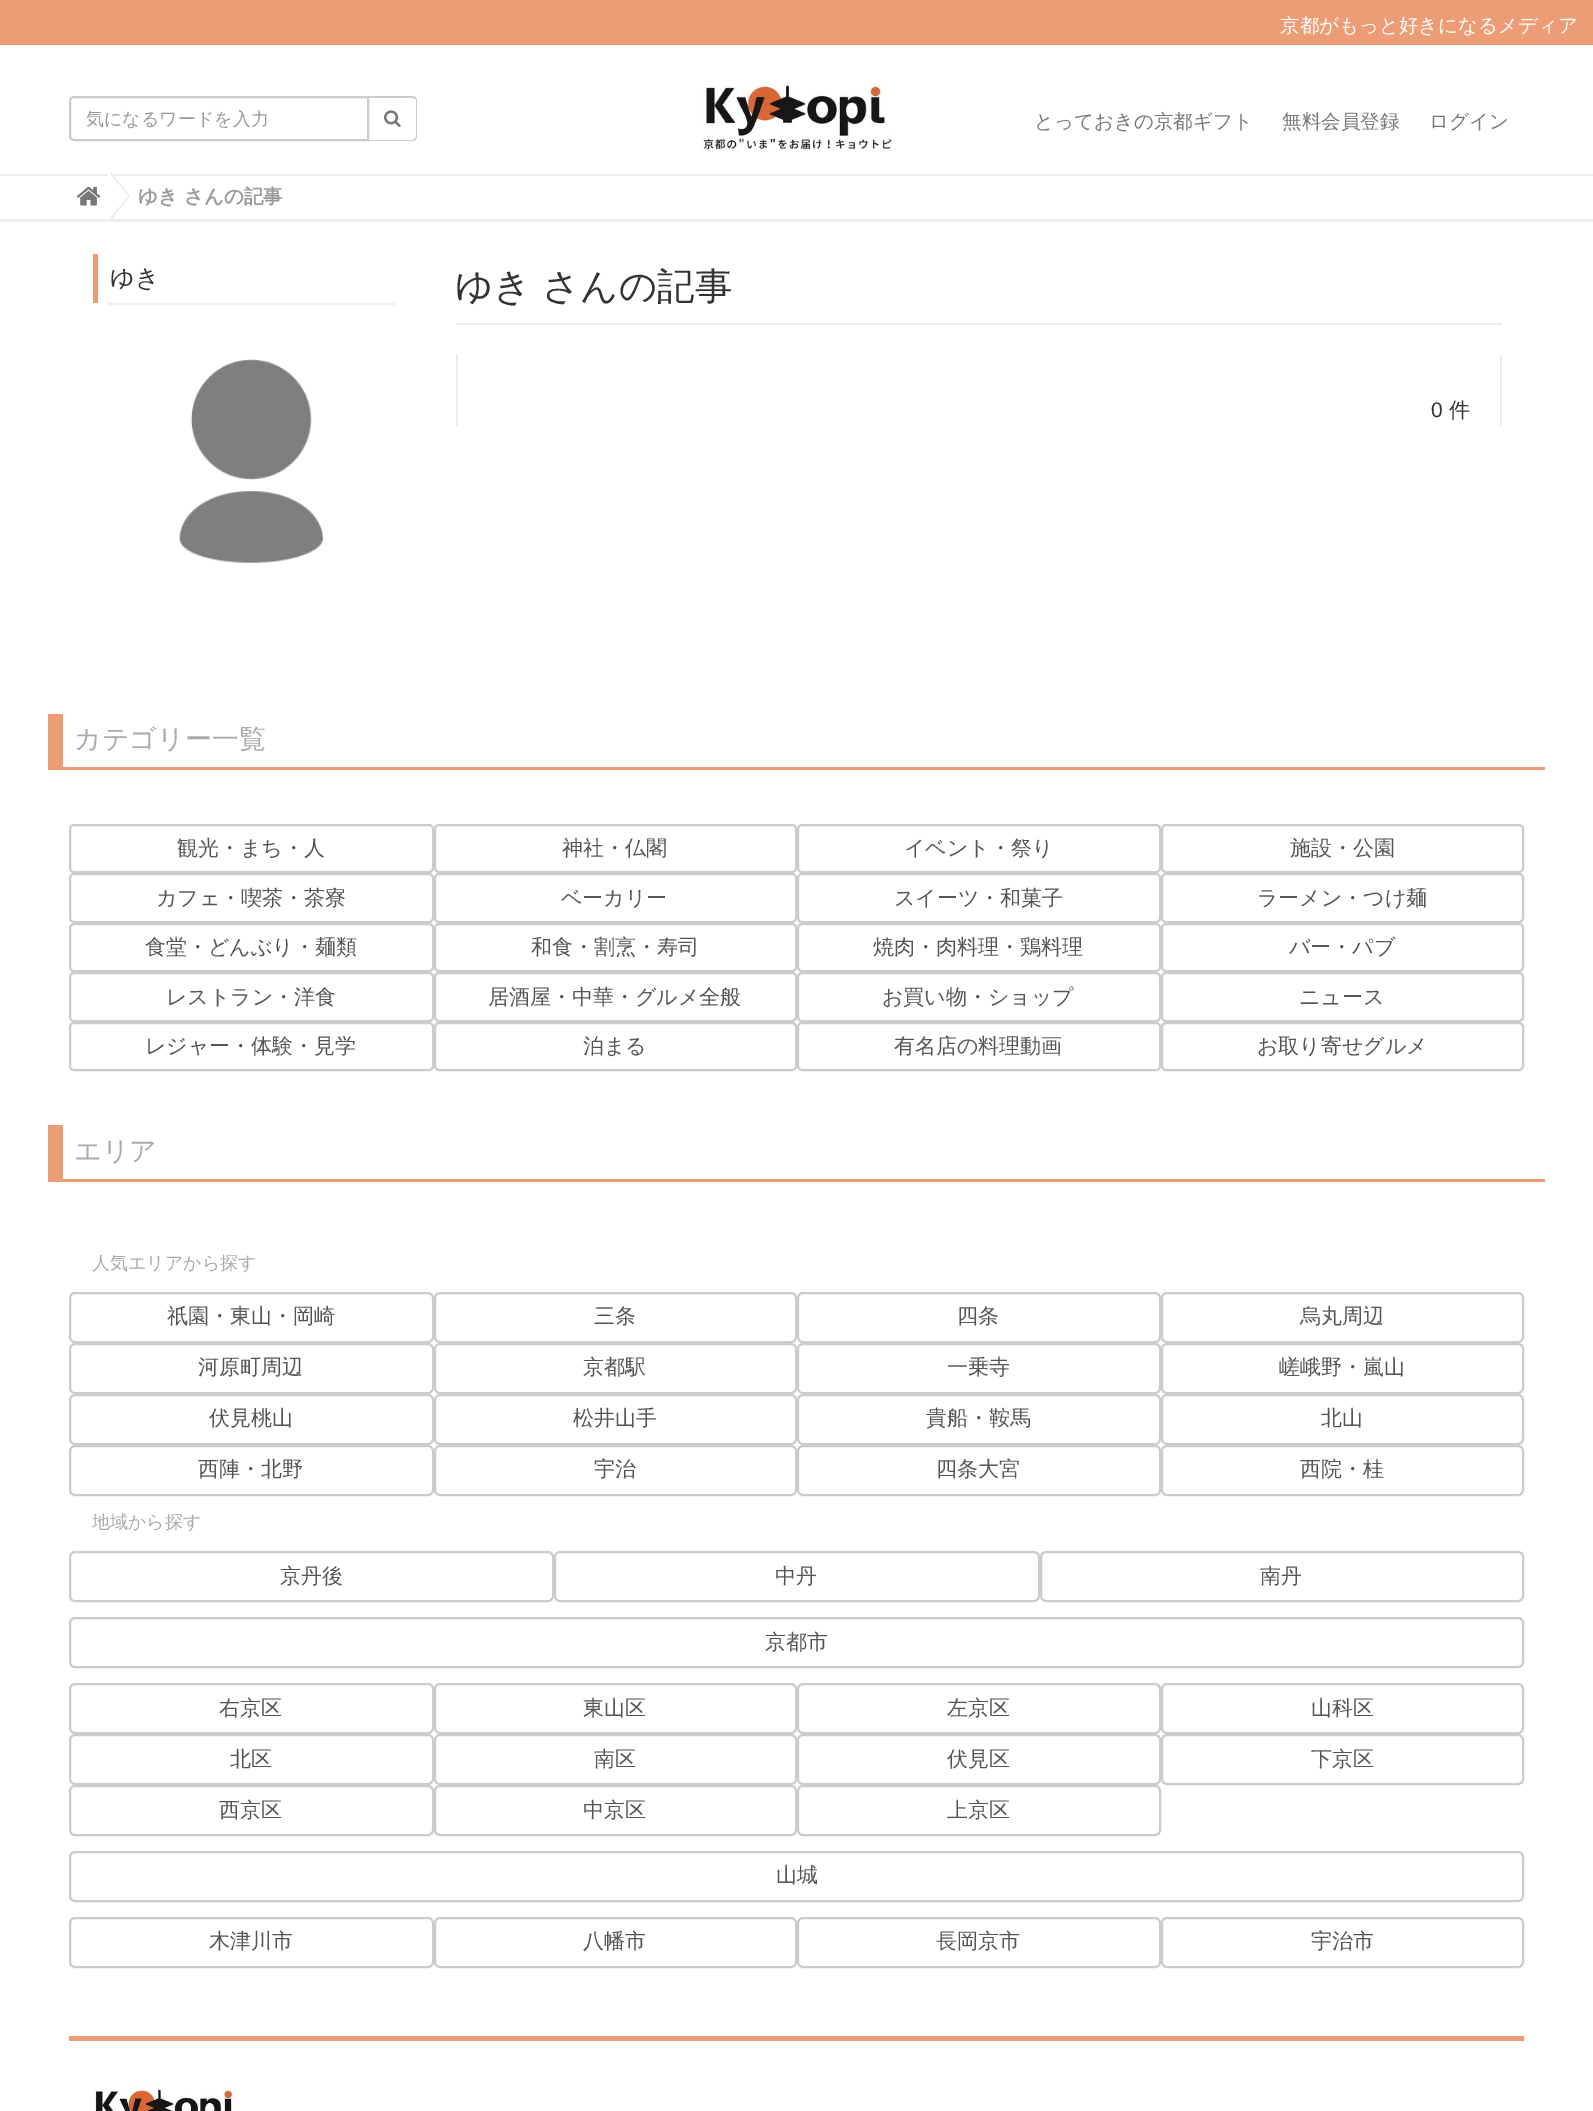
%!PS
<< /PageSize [1593 2111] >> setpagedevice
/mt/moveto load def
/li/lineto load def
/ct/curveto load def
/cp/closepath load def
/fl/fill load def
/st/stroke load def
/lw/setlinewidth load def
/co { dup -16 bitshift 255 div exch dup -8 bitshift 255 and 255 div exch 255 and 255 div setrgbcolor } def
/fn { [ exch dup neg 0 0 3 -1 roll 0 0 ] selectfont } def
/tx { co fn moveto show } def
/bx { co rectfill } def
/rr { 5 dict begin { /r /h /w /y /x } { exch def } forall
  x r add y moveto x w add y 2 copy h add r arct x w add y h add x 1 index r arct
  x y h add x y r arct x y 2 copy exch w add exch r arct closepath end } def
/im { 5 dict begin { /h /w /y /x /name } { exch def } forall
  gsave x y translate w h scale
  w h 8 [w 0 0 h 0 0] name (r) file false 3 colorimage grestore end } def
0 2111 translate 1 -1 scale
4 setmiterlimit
0 0 1593 2111 16#FFFFFF bx
0 219 1593 3 16#EEEEEE bx
0 0 1593 45 16#ED9D76 bx
(media/1.raw) 701 79 191 72 im
16#CCCCCC co
2 lw
74 97 mt 368 97 li 368 140 li 74 140 li 72 140 70 138 70 136 ct 70 101 li 70 99 72 97 74 97 ct cp st
369 96 mt 412 96 li 415 96 417 98 417 100 ct 417 136 li 417 139 415 141 412 141 ct 369 141 li cp 369 98 mt 412 98 li 414 98 416 99 416 100 ct 416 136 li 416 138 414 140 412 140 ct 369 140 li cp eofill
(media/2.raw) 384 110 17 17 im
0 174 1593 2 16#EEEEEE bx
111 220 mt 111 172 li 130 196 li cp fl
16#FFFFFF co
108 220 mt 108 172 li 128 196 li cp fl
(media/3.raw) 76 186 25 20 im
93 254 5 49 16#ED9D76 bx
108 303 287 2 16#EEEEEE bx
(media/4.raw) 179 359 144 204 im
456 323 1046 2 16#EEEEEE bx
1500 354 2 72 16#EEEEEE bx
456 354 2 72 16#EEEEEE bx
63 767 1482 3 16#ED9D76 bx
48 714 15 56 16#ED9D76 bx
16#CCCCCC co
70 825 363 47 4 rr st
435 825 361 47 4 rr st
798 825 362 47 4 rr st
1162 825 361 47 4 rr st
70 874 363 48 4 rr st
435 874 361 48 4 rr st
798 874 362 48 4 rr st
1162 874 361 48 4 rr st
70 924 363 47 4 rr st
435 924 361 47 4 rr st
798 924 362 47 4 rr st
1162 924 361 47 4 rr st
70 973 363 48 4 rr st
435 973 361 48 4 rr st
798 973 362 48 4 rr st
1162 973 361 48 4 rr st
70 1023 363 47 4 rr st
435 1023 361 47 4 rr st
798 1023 362 47 4 rr st
1162 1023 361 47 4 rr st
63 1179 1482 3 16#ED9D76 bx
48 1125 15 57 16#ED9D76 bx
16#CCCCCC co
70 1293 363 49 5 rr st
435 1293 361 49 5 rr st
798 1293 362 49 5 rr st
1162 1293 361 49 5 rr st
70 1344 363 49 5 rr st
435 1344 361 49 5 rr st
798 1344 362 49 5 rr st
1162 1344 361 49 5 rr st
70 1395 363 49 5 rr st
435 1395 361 49 5 rr st
798 1395 362 49 5 rr st
1162 1395 361 49 5 rr st
70 1446 363 49 5 rr st
435 1446 361 49 5 rr st
798 1446 362 49 5 rr st
1162 1446 361 49 5 rr st
70 1552 483 49 5 rr st
555 1552 484 49 5 rr st
1041 1552 482 49 5 rr st
70 1618 1453 49 5 rr st
70 1684 363 49 5 rr st
435 1684 361 49 5 rr st
798 1684 362 49 5 rr st
1162 1684 361 49 5 rr st
70 1735 363 49 5 rr st
435 1735 361 49 5 rr st
798 1735 362 49 5 rr st
1162 1735 361 49 5 rr st
70 1786 363 49 5 rr st
435 1786 361 49 5 rr st
798 1786 362 49 5 rr st
70 1852 1453 49 5 rr st
70 1918 363 49 5 rr st
435 1918 361 49 5 rr st
798 1918 362 49 5 rr st
1162 1918 361 49 5 rr st
69 2036 1455 5 16#ED9D76 bx
(media/5.raw) 95 2085 138 26 im
(京都がもっと好きになるメディア) 1280 32 /WenQuanYiZenHei-Medium 19.5 16#FFFFFF tx
(気になるワードを入力) 86 125 /WenQuanYiZenHei-Medium 18 16#999999 tx
(とっておきの京都ギフト) 1034 128 /WenQuanYiZenHei-Medium 19.5 16#777777 tx
(無料会員登録) 1282 128 /WenQuanYiZenHei-Medium 19.5 16#777777 tx
(ログイン) 1429 128 /WenQuanYiZenHei-Medium 19.5 16#777777 tx
(ゆき さんの記事) 138 203 /WenQuanYiZenHei-Bold 19.5 16#999999 tx
(ゆき) 110 286 /WenQuanYiZenHei-Medium 24 16#333333 tx
/WenQuanYiZenHei-Medium 37.5 fn
455 299 mt -1 0 32 (ゆき さんの記事) widthshow
(0) 1431 417 /LiberationSans-Regular 21 16#333333 tx
(件) 1449 417 /WenQuanYiZenHei-Medium 21 16#333333 tx
(カテゴリー一覧) 74 748 /WenQuanYiZenHei-Medium 27 16#AAAAAA tx
(観光・まち・人) 177 855 /WenQuanYiZenHei-Medium 21 16#555555 tx
(神社・仏閣) 562 855 /WenQuanYiZenHei-Medium 21 16#555555 tx
(イベント・祭り) 904 855 /WenQuanYiZenHei-Medium 21 16#555555 tx
(施設・公園) 1290 855 /WenQuanYiZenHei-Medium 21 16#555555 tx
(カフェ・喫茶・茶寮) 156 905 /WenQuanYiZenHei-Medium 21 16#555555 tx
(ベーカリー) 561 905 /WenQuanYiZenHei-Medium 21 16#555555 tx
(スイーツ・和菓子) 894 905 /WenQuanYiZenHei-Medium 21 16#555555 tx
(ラーメン・つけ麺) 1257 905 /WenQuanYiZenHei-Medium 21 16#555555 tx
(食堂・どんぶり・麺類) 145 954 /WenQuanYiZenHei-Medium 21 16#555555 tx
(和食・割烹・寿司) 531 954 /WenQuanYiZenHei-Medium 21 16#555555 tx
(焼肉・肉料理・鶏料理) 873 954 /WenQuanYiZenHei-Medium 21 16#555555 tx
(バー・パブ) 1289 954 /WenQuanYiZenHei-Medium 21 16#555555 tx
(レストラン・洋食) 166 1004 /WenQuanYiZenHei-Medium 21 16#555555 tx
(居酒屋・中華・グルメ全般) 488 1004 /WenQuanYiZenHei-Medium 21 16#555555 tx
(お買い物・ショップ) 882 1004 /WenQuanYiZenHei-Medium 21 16#555555 tx
(ニュース) 1299 1004 /WenQuanYiZenHei-Medium 21 16#555555 tx
(レジャー・体験・見学) 145 1053 /WenQuanYiZenHei-Medium 21 16#555555 tx
(泊まる) 583 1053 /WenQuanYiZenHei-Medium 21 16#555555 tx
(有名店の料理動画) 894 1053 /WenQuanYiZenHei-Medium 21 16#555555 tx
(お取り寄せグルメ) 1257 1053 /WenQuanYiZenHei-Medium 21 16#555555 tx
(エリア) 74 1160 /WenQuanYiZenHei-Medium 27 16#AAAAAA tx
(人気エリアから探す) 92 1269 /WenQuanYiZenHei-Medium 18 16#AAAAAA tx
(祇園・東山・岡崎) 167 1323 /WenQuanYiZenHei-Medium 21 16#555555 tx
(三条) 594 1323 /WenQuanYiZenHei-Medium 21 16#555555 tx
(四条) 957 1323 /WenQuanYiZenHei-Medium 21 16#555555 tx
(烏丸周辺) 1300 1323 /WenQuanYiZenHei-Medium 21 16#555555 tx
(河原町周辺) 198 1374 /WenQuanYiZenHei-Medium 21 16#555555 tx
(京都駅) 583 1374 /WenQuanYiZenHei-Medium 21 16#555555 tx
(一乗寺) 947 1374 /WenQuanYiZenHei-Medium 21 16#555555 tx
(嵯峨野・嵐山) 1279 1374 /WenQuanYiZenHei-Medium 21 16#555555 tx
(伏見桃山) 209 1425 /WenQuanYiZenHei-Medium 21 16#555555 tx
(松井山手) 573 1425 /WenQuanYiZenHei-Medium 21 16#555555 tx
(貴船・鞍馬) 926 1425 /WenQuanYiZenHei-Medium 21 16#555555 tx
(北山) 1321 1425 /WenQuanYiZenHei-Medium 21 16#555555 tx
(西陣・北野) 198 1476 /WenQuanYiZenHei-Medium 21 16#555555 tx
(宇治) 594 1476 /WenQuanYiZenHei-Medium 21 16#555555 tx
(四条大宮) 936 1476 /WenQuanYiZenHei-Medium 21 16#555555 tx
(西院・桂) 1300 1476 /WenQuanYiZenHei-Medium 21 16#555555 tx
(地域から探す) 92 1528 /WenQuanYiZenHei-Medium 18 16#AAAAAA tx
(京丹後) 280 1583 /WenQuanYiZenHei-Medium 21 16#555555 tx
(中丹) 775 1583 /WenQuanYiZenHei-Medium 21 16#555555 tx
(南丹) 1260 1583 /WenQuanYiZenHei-Medium 21 16#555555 tx
(京都市) 765 1649 /WenQuanYiZenHei-Medium 21 16#555555 tx
(右京区) 219 1715 /WenQuanYiZenHei-Medium 21 16#555555 tx
(東山区) 583 1715 /WenQuanYiZenHei-Medium 21 16#555555 tx
(左京区) 947 1715 /WenQuanYiZenHei-Medium 21 16#555555 tx
(山科区) 1311 1715 /WenQuanYiZenHei-Medium 21 16#555555 tx
(北区) 230 1766 /WenQuanYiZenHei-Medium 21 16#555555 tx
(南区) 594 1766 /WenQuanYiZenHei-Medium 21 16#555555 tx
(伏見区) 947 1766 /WenQuanYiZenHei-Medium 21 16#555555 tx
(下京区) 1311 1766 /WenQuanYiZenHei-Medium 21 16#555555 tx
(西京区) 219 1817 /WenQuanYiZenHei-Medium 21 16#555555 tx
(中京区) 583 1817 /WenQuanYiZenHei-Medium 21 16#555555 tx
(上京区) 947 1817 /WenQuanYiZenHei-Medium 21 16#555555 tx
(山城) 776 1882 /WenQuanYiZenHei-Medium 21 16#555555 tx
(木津川市) 209 1948 /WenQuanYiZenHei-Medium 21 16#555555 tx
(八幡市) 583 1948 /WenQuanYiZenHei-Medium 21 16#555555 tx
(長岡京市) 936 1948 /WenQuanYiZenHei-Medium 21 16#555555 tx
(宇治市) 1311 1948 /WenQuanYiZenHei-Medium 21 16#555555 tx
showpage
